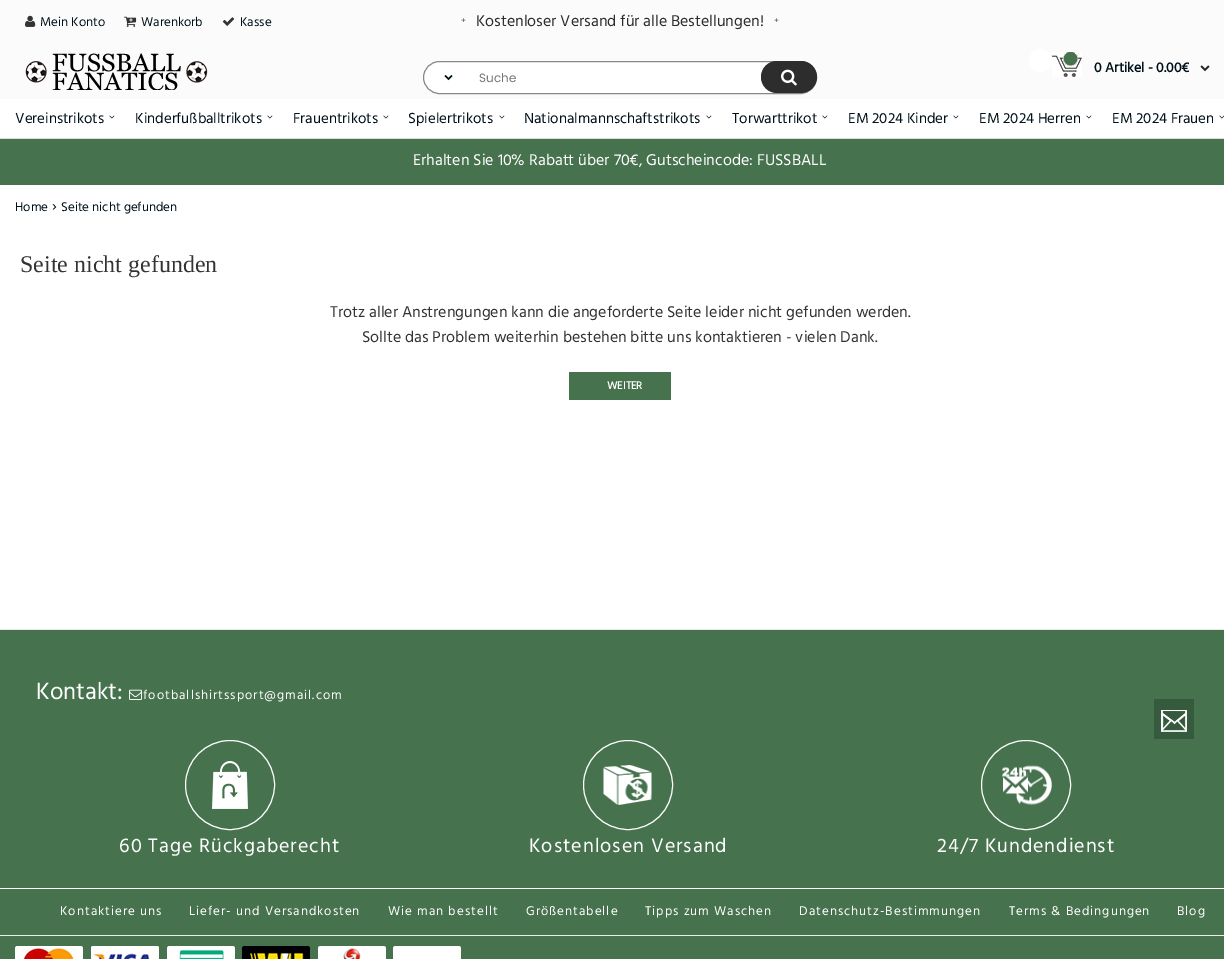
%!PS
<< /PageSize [1224 959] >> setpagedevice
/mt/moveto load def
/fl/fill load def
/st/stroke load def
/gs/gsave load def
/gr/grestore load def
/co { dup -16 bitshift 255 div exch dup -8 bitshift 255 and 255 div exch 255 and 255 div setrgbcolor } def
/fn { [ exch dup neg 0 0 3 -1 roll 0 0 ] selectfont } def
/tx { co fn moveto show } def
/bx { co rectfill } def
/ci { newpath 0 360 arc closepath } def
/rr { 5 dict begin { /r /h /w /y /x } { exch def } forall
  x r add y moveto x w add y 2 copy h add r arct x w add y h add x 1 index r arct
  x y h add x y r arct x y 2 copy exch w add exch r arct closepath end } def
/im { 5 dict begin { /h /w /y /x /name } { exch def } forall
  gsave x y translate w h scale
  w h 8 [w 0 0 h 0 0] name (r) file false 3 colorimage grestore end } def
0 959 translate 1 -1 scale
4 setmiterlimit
0 0 1224 959 16#FFFFFF bx
0 0 1224 99 16#FBFBFB bx
(media/1.raw) 25 15 11 12 im
(media/2.raw) 124 16 13 11 im
(media/3.raw) 222 17 13 9 im
(media/4.raw) 25 53 183 37 im
16#FFFFFF co
1040.5 60.5 11.5 ci fl
(media/5.raw) 1052 52 30 25 im
(media/6.raw) 1200 65 10 7 im
423.5 61.5 393 32 16 rr gs fl gr
16#898989 co
st
(media/7.raw) 444 75 9 6 im
16#2D2D2D co
761 61 56 32 16 rr fl
(media/8.raw) 781 69 16 17 im
0 138 1224 1 16#DDDDDD bx
(media/9.raw) 109 115 6 4 im
(media/9.raw) 267 115 6 4 im
(media/9.raw) 383 115 6 4 im
(media/9.raw) 499 115 6 4 im
(media/9.raw) 706 115 6 4 im
(media/9.raw) 822 115 6 4 im
(media/9.raw) 953 115 6 4 im
(media/9.raw) 1086 115 6 4 im
(media/10.raw) 1219 115 5 4 im
0 139 1224 46 16#46724E bx
569 372 102 28 16#46724E bx
0 629 1224 1 16#E8E8E8 bx
0 630 1224 305 16#46724E bx
(media/11.raw) 129 689 13 11 im
0 888 1224 1 16#FFFFFF bx
230 785 44.5 ci st
(media/12.raw) 212 761 36 48 im
628 785 44.5 ci st
(media/13.raw) 603 765 49 40 im
1026 785 44.5 ci st
(media/14.raw) 1002 765 50 40 im
0 936 1224 23 16#46724E bx
0 935 1224 1 16#ECECEC bx
(media/15.raw) 15 946 446 13 im
1154 699 40 40 16#365A3D bx
(media/16.raw) 1161 710 26 22 im
(Mein Konto) 40 26 /Hind-Regular 13 16#00111A tx
(Warenkorb) 141 26 /Hind-Regular 13 16#00111A tx
(Kasse) 240 26 /Hind-Regular 13 16#00111A tx
(+) 461 23 /Hind-Bold 8 16#46724E tx
(Kostenloser Versand für alle Bestellungen!) 476 26 /Hind-Regular 16 16#2D2D2D tx
(+) 774 23 /Hind-Bold 8 16#46724E tx
(0 Artikel - 0.00€) 1094 72 /Hind-Bold 14 16#00111A tx
(Suche) 479 82 /Poppins-Regular 12 16#757575 tx
(Vereinstrikots) 15 123 /Hind-Regular 15 16#00111A tx
(Kinderfußballtrikots) 135 123 /Hind-Regular 15 16#00111A tx
(Frauentrikots) 293 123 /Hind-Regular 15 16#00111A tx
(Spielertrikots) 408 123 /Hind-Regular 15 16#00111A tx
(Nationalmannschaftstrikots) 524 123 /Hind-Regular 15 16#00111A tx
(Torwarttrikot) 732 123 /Hind-Regular 15 16#00111A tx
(EM 2024 Kinder) 848 123 /Hind-Regular 15 16#00111A tx
(EM 2024 Herren) 979 123 /Hind-Regular 15 16#00111A tx
(EM 2024 Frauen) 1112 123 /Hind-Regular 15 16#00111A tx
(Erhalten Sie 10% Rabatt über 70€, Gutscheincode: FUSSBALL) 413 165 /Hind-Regular 16 16#FFFFFF tx
(Home) 15 211 /Hind-Regular 13 16#00111A tx
(›) 52 211 /Hind-Regular 16 16#00111A tx
(Seite nicht gefunden) 61 211 /Hind-Regular 13 16#00111A tx
(Seite nicht gefunden) 20 272 /LiberationSerif-Regular 24 16#333333 tx
(Trotz aller Anstrengungen kann die angeforderte Seite leider nicht gefunden werden.) 330 317 /Hind-Regular 16 16#333333 tx
(Sollte das Problem weiterhin bestehen bitte uns kontaktieren - vielen Dank.) 362 342 /Hind-Regular 16 16#333333 tx
(WEITER) 607 389 /Hind-Bold 11 16#FFFFFF tx
(Kontakt:) 36 699 /Hind-Regular 24 16#FFFFFF tx
/Hind-Regular 13 fn
143 699 mt 1 0 (footballshirtssport@gmail.com) ashow
/Hind-Regular 20 fn
119 852 mt 1 0 (60 Tage Rückgaberecht) ashow
529 852 mt 1 0 (Kostenlosen Versand) ashow
937 852 mt 1 0 (24/7 Kundendienst) ashow
/Hind-Regular 13 fn
60 915 mt 1 0 (Kontaktiere uns) ashow
189 915 mt 1 0 (Liefer- und Versandkosten) ashow
388 915 mt 1 0 (Wie man bestellt) ashow
526 915 mt 1 0 (Größentabelle) ashow
645 915 mt 1 0 (Tipps zum Waschen) ashow
799 915 mt 1 0 (Datenschutz-Bestimmungen) ashow
1009 915 mt 1 0 (Terms & Bedingungen) ashow
1177 915 mt 1 0 (Blog) ashow
showpage
